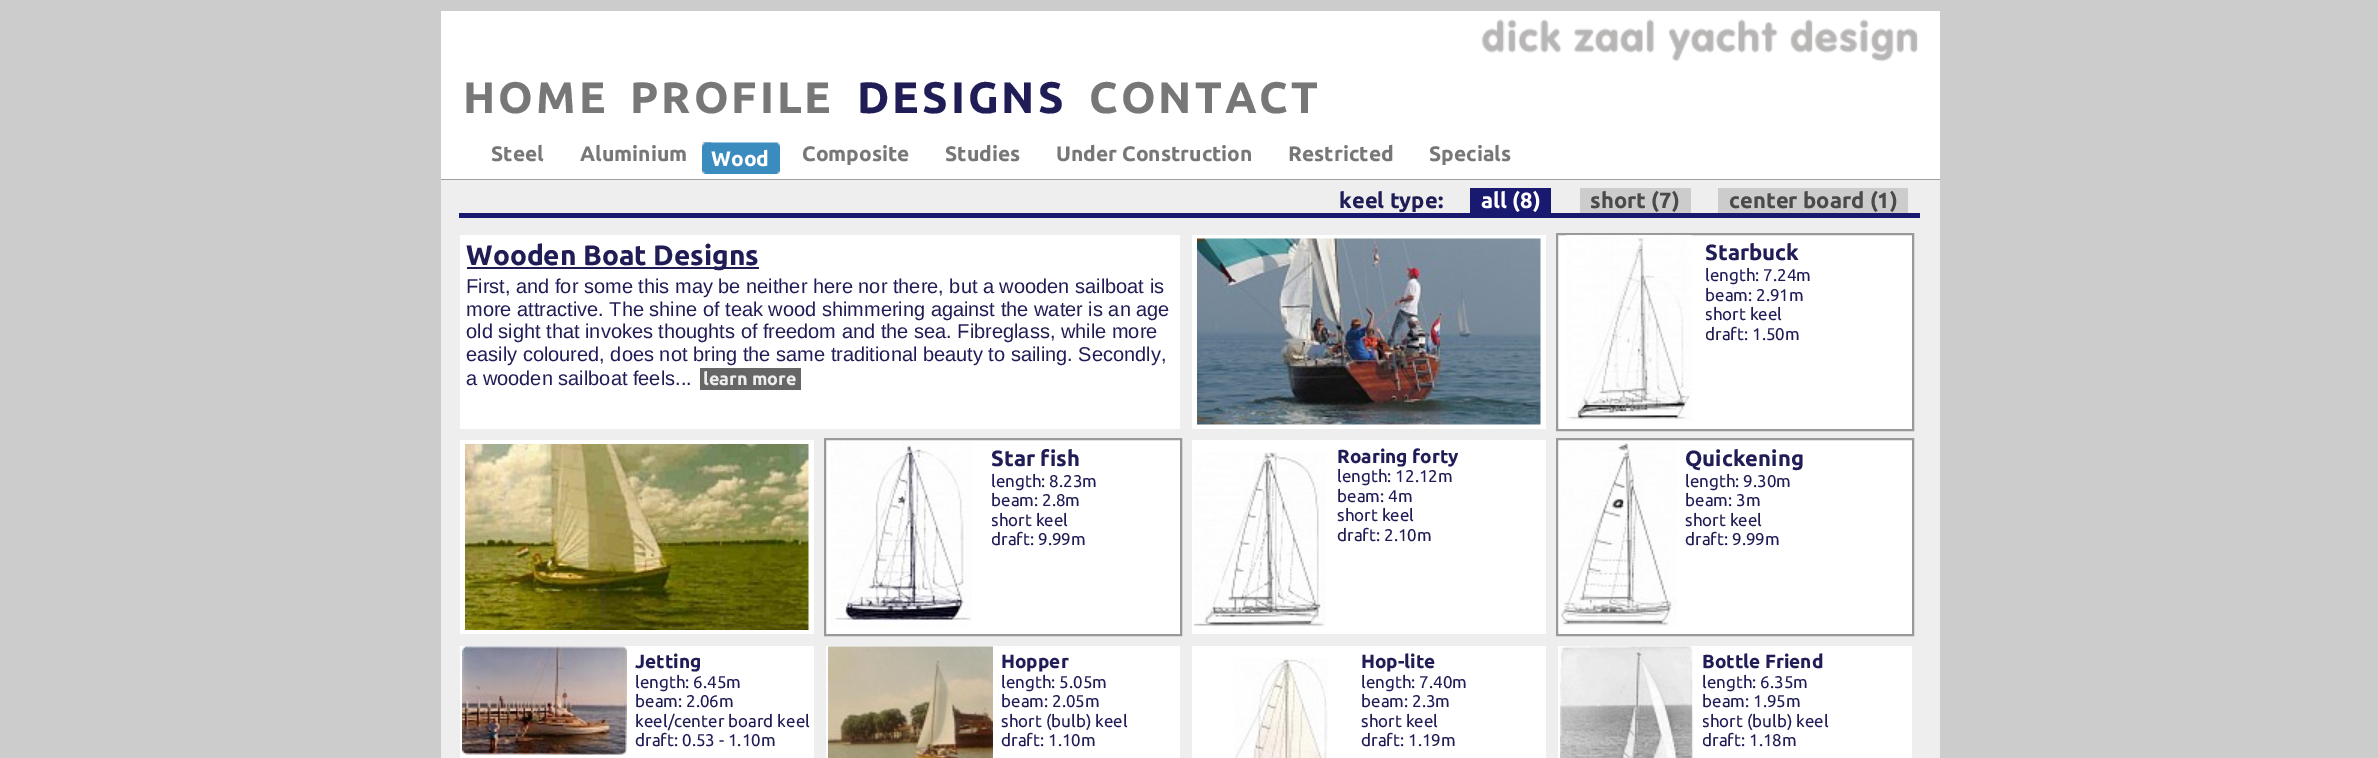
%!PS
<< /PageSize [2378 758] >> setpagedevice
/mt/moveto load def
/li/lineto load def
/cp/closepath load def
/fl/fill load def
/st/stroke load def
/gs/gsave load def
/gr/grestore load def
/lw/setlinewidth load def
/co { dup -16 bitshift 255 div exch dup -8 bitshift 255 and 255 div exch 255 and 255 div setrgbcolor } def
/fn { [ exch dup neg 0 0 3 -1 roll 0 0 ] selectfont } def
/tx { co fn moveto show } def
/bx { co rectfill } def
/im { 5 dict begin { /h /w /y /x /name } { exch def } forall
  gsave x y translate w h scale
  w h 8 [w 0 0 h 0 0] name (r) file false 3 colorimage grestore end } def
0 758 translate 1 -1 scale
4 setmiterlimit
0 0 2378 758 16#CCCCCC bx
441 11 1499 168 16#FFFFFF bx
(media/1.raw) 1481 19 437 43 im
441 179 1499 1 16#9F9F9F bx
(media/2.raw) 702 142 78 32 im
(media/3.raw) 702 142 10 32 im
441 180 1499 578 16#EEEEEE bx
459 213 1461 5 16#191970 bx
1470 188 81 25 16#191970 bx
1580 188 111 25 16#CCCCCC bx
1718 188 190 25 16#CCCCCC bx
460 235 720 194 16#FFFFFF bx
467 267 292 2 16#201D56 bx
700 368 101 22 16#666666 bx
1192 235 354 194 16#FFFFFF bx
(media/4.raw) 1197 238 344 187 im
1557 234 mt 1913 234 li 1913 430 li 1557 430 li cp gs fl gr
16#999999 co
2 lw
st
(media/5.raw) 1566 235 126 186 im
460 440 354 194 16#FFFFFF bx
(media/6.raw) 465 444 344 186 im
825 439 mt 1181 439 li 1181 635 li 825 635 li cp gs fl gr
16#999999 co
st
(media/7.raw) 830 441 142 186 im
1192 440 354 194 16#FFFFFF bx
(media/8.raw) 1194 452 132 175 im
1557 439 mt 1913 439 li 1913 635 li 1557 635 li cp gs fl gr
16#999999 co
st
(media/9.raw) 1560 441 117 186 im
460 646 354 112 16#FFFFFF bx
(media/10.raw) 462 646 165 109 im
826 646 354 112 16#FFFFFF bx
(media/11.raw) 828 646 165 112 im
1192 646 354 112 16#FFFFFF bx
(media/12.raw) 1234 658 94 100 im
1558 646 354 112 16#FFFFFF bx
(media/13.raw) 1560 646 134 112 im
/Ubuntu-Bold 44 fn
16#777777 co
463 113 mt 3 0 (HOME) ashow
630 113 mt 3 0 (PROFILE) ashow
16#201D56 co
857 113 mt 3 0 (DESIGNS) ashow
16#777777 co
1089 113 mt 3 0 (CONTACT) ashow
(Steel) 491 161 /Ubuntu-Bold 21 16#777777 tx
(Aluminium) 580 161 /Ubuntu-Bold 21 16#777777 tx
(Wood) 711 166 /Ubuntu-Bold 21 16#FFFFFF tx
(Composite) 802 161 /Ubuntu-Bold 21 16#777777 tx
(Studies) 945 161 /Ubuntu-Bold 21 16#777777 tx
(Under Construction) 1056 161 /Ubuntu-Bold 21 16#777777 tx
(Restricted) 1288 161 /Ubuntu-Bold 21 16#777777 tx
(Specials) 1429 161 /Ubuntu-Bold 21 16#777777 tx
(keel type:) 1339 208 /Ubuntu-Bold 22 16#201D56 tx
(all \(8\)) 1481 208 /Ubuntu-Bold 22 16#FFFFFF tx
(short \(7\)) 1590 208 /Ubuntu-Bold 22 16#4A4A4A tx
(center board \(1\)) 1729 208 /Ubuntu-Bold 22 16#4A4A4A tx
(Wooden Boat Designs) 466 265 /Ubuntu-Bold 28 16#201D56 tx
(First, and for some this may be neither here nor there, but a wooden sailboat is) 466 293 /LiberationSans-Regular 20 16#201D56 tx
(more attractive. The shine of teak wood shimmering against the water is an age) 466 316 /LiberationSans-Regular 20 16#201D56 tx
(old sight that invokes thoughts of freedom and the sea. Fibreglass, while more) 466 338 /LiberationSans-Regular 20 16#201D56 tx
(easily coloured, does not bring the same traditional beauty to sailing. Secondly,) 466 361 /LiberationSans-Regular 20 16#201D56 tx
(a wooden sailboat feels...) 466 385 /LiberationSans-Regular 20 16#201D56 tx
(learn more) 703 385 /Ubuntu-Bold 18 16#EEEEEE tx
gs
1706 234 205 110 rectclip
(Starbuck) 1705 260 /Ubuntu-Bold 22 16#201D56 tx
gr
(length: 7.24m) 1705 281 /Ubuntu-Regular 17 16#201D56 tx
(beam: 2.91m) 1705 301 /Ubuntu-Regular 17 16#201D56 tx
gs
1706 234 205 110 rectclip
(short keel) 1705 320 /Ubuntu-Regular 17 16#201D56 tx
(draft:) 1705 340 /Ubuntu-Regular 17 16#201D56 tx
gr
(1.50m) 1752 340 /Ubuntu-Regular 17 16#201D56 tx
gs
992 440 187 109 rectclip
(Star fish) 991 466 /Ubuntu-Bold 22 16#201D56 tx
gr
(length: 8.23m) 991 487 /Ubuntu-Regular 17 16#201D56 tx
(beam: 2.8m) 991 506 /Ubuntu-Regular 17 16#201D56 tx
gs
992 440 187 109 rectclip
(short keel) 991 526 /Ubuntu-Regular 17 16#201D56 tx
(draft:) 991 545 /Ubuntu-Regular 17 16#201D56 tx
gr
(9.99m) 1038 545 /Ubuntu-Regular 17 16#201D56 tx
(Roaring forty) 1337 463 /Ubuntu-Bold 19 16#201D56 tx
(length: 12.12m) 1337 482 /Ubuntu-Regular 17 16#201D56 tx
(beam: 4m) 1337 502 /Ubuntu-Regular 17 16#201D56 tx
(short keel) 1337 521 /Ubuntu-Regular 17 16#201D56 tx
(draft: 2.10m) 1337 541 /Ubuntu-Regular 17 16#201D56 tx
(Quickening) 1685 466 /Ubuntu-Bold 22 16#201D56 tx
(length: 9.30m) 1685 487 /Ubuntu-Regular 17 16#201D56 tx
(beam: 3m) 1685 506 /Ubuntu-Regular 17 16#201D56 tx
(short keel) 1685 526 /Ubuntu-Regular 17 16#201D56 tx
(draft: 9.99m) 1685 545 /Ubuntu-Regular 17 16#201D56 tx
(Jetting) 635 668 /Ubuntu-Bold 19 16#201D56 tx
(length: 6.45m) 635 688 /Ubuntu-Regular 17 16#201D56 tx
(beam: 2.06m) 635 707 /Ubuntu-Regular 17 16#201D56 tx
(keel/center board keel) 635 727 /Ubuntu-Regular 17 16#201D56 tx
(draft: 0.53 - 1.10m) 635 746 /Ubuntu-Regular 17 16#201D56 tx
(Hopper) 1001 668 /Ubuntu-Bold 19 16#201D56 tx
(length: 5.05m) 1001 688 /Ubuntu-Regular 17 16#201D56 tx
(beam: 2.05m) 1001 707 /Ubuntu-Regular 17 16#201D56 tx
(short \(bulb\) keel) 1001 727 /Ubuntu-Regular 17 16#201D56 tx
(draft: 1.10m) 1001 746 /Ubuntu-Regular 17 16#201D56 tx
(Hop-lite) 1361 668 /Ubuntu-Bold 19 16#201D56 tx
(length: 7.40m) 1361 688 /Ubuntu-Regular 17 16#201D56 tx
(beam: 2.3m) 1361 707 /Ubuntu-Regular 17 16#201D56 tx
(short keel) 1361 727 /Ubuntu-Regular 17 16#201D56 tx
(draft: 1.19m) 1361 746 /Ubuntu-Regular 17 16#201D56 tx
(Bottle Friend) 1702 668 /Ubuntu-Bold 19 16#201D56 tx
(length: 6.35m) 1702 688 /Ubuntu-Regular 17 16#201D56 tx
(beam: 1.95m) 1702 707 /Ubuntu-Regular 17 16#201D56 tx
gs
1703 645 208 105 rectclip
(short \(bulb\) keel) 1702 727 /Ubuntu-Regular 17 16#201D56 tx
(draft:) 1702 746 /Ubuntu-Regular 17 16#201D56 tx
gr
(1.18m) 1749 746 /Ubuntu-Regular 17 16#201D56 tx
showpage
